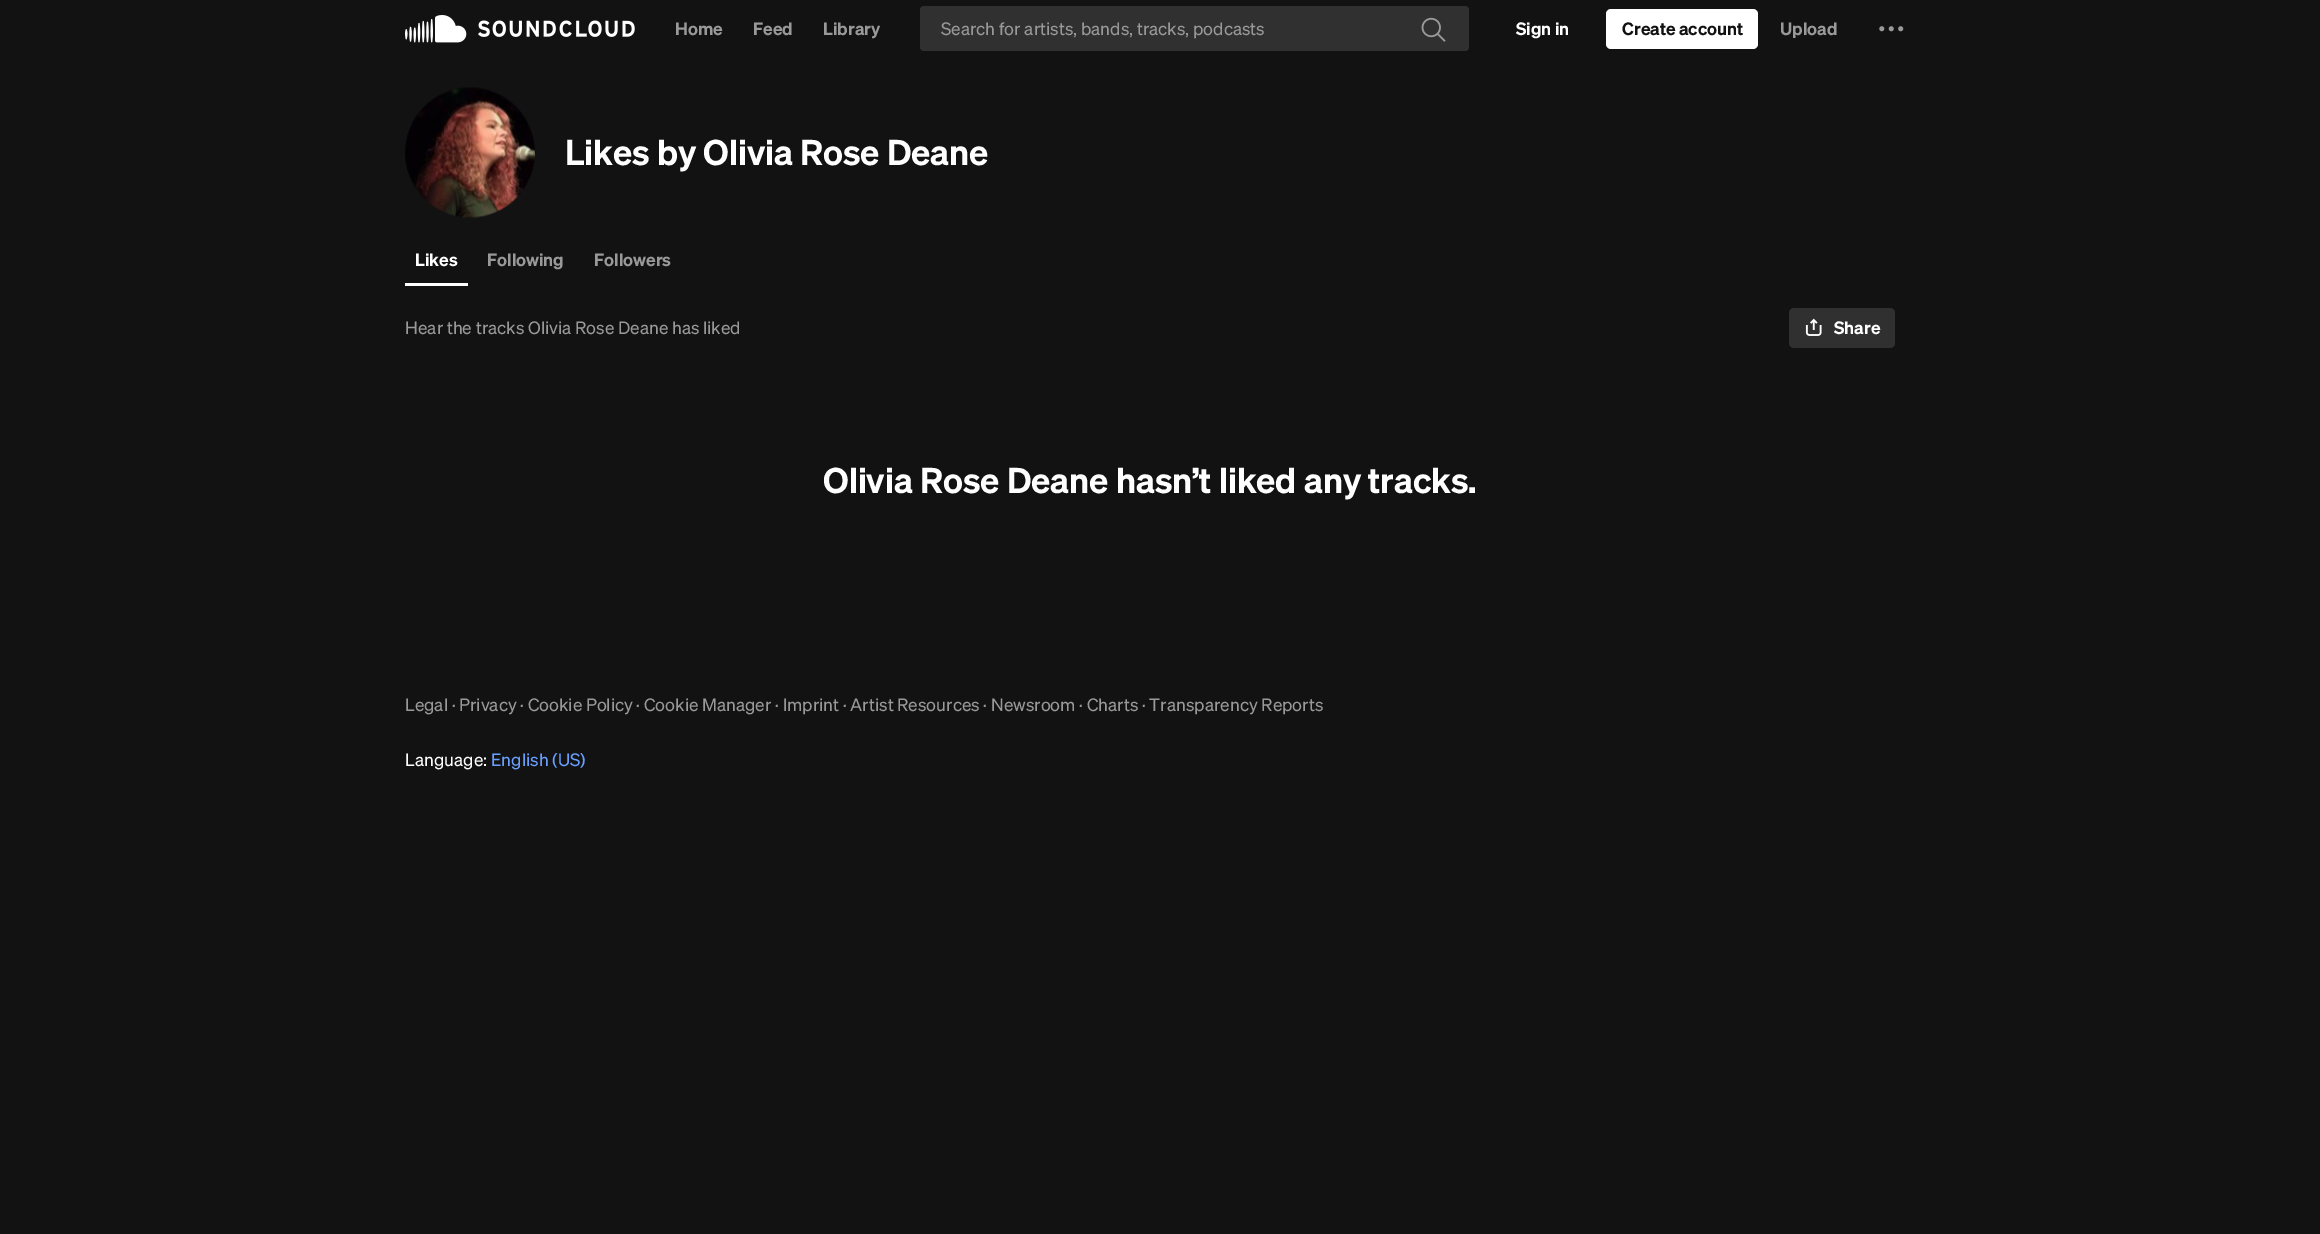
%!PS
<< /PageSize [2320 1234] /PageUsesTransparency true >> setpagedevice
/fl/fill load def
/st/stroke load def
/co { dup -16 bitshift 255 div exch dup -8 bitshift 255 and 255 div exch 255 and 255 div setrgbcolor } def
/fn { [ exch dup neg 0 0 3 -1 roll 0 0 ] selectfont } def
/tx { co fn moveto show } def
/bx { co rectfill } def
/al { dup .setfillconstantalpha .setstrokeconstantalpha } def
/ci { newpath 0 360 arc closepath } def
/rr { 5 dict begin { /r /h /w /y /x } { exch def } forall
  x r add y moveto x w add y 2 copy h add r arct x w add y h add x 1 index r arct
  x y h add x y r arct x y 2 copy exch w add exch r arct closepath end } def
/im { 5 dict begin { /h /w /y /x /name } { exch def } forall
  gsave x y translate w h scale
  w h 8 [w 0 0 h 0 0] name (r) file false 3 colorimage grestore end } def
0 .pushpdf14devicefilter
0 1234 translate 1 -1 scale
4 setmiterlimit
0 0 2320 1234 16#121212 bx
(media/1.raw) 405 15 230 28 im
16#303030 co
920 6 549 45 4 rr fl
(media/2.raw) 1421 17 25 25 im
16#FFFFFF co
1606 9 152 40 5 rr fl
(media/3.raw) 1879 26 25 6 im
(media/4.raw) 405 87 130 131 im
0.1 al
16#121212 co
470 153 64.5 ci st
1 al
405 283 63 3 16#FFFFFF bx
16#303030 co
1789 308 106 40 5 rr fl
(media/5.raw) 1805 318 17 18 im
(Home) 675 35 /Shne-SemiBold 17.5 16#999999 tx
(Feed) 753 35 /Shne-SemiBold 17.5 16#999999 tx
(Library) 823 35 /Shne-SemiBold 17.5 16#999999 tx
(Search for artists, bands, tracks, podcasts) 941 35 /Shne-Regular 17.5 16#999999 tx
(Sign in) 1516 35 /Shne-SemiBold 17.5 16#FFFFFF tx
(Create account) 1622 35 /Shne-SemiBold 17.5 16#121212 tx
(Upload) 1780 35 /Shne-SemiBold 17.5 16#999999 tx
(Likes by Olivia Rose Deane) 565 165 /Shne-SemiBold 35 16#FFFFFF tx
(Likes) 415 266 /Shne-SemiBold 17.5 16#FFFFFF tx
(Following) 487 266 /Shne-SemiBold 17.5 16#999999 tx
(Followers) 594 266 /Shne-SemiBold 17.5 16#999999 tx
(Hear the tracks Olivia Rose Deane has liked) 405 334 /Shne-Regular 17.5 16#999999 tx
(Share) 1834 334 /Shne-SemiBold 17.5 16#FFFFFF tx
(Olivia Rose Deane hasn’t liked any tracks.) 823 493 /Shne-SemiBold 35 16#FFFFFF tx
(Legal · Privacy · Cookie Policy · Cookie Manager · Imprint · Artist Resources · Newsroom · Charts · Transparency Reports) 405 711 /Shne-Regular 17.5 16#999999 tx
(Language:) 405 766 /Shne-Regular 17.5 16#FFFFFF tx
(English \(US\)) 491 766 /Shne-Regular 17.5 16#699FFF tx
.poppdf14devicefilter showpage
